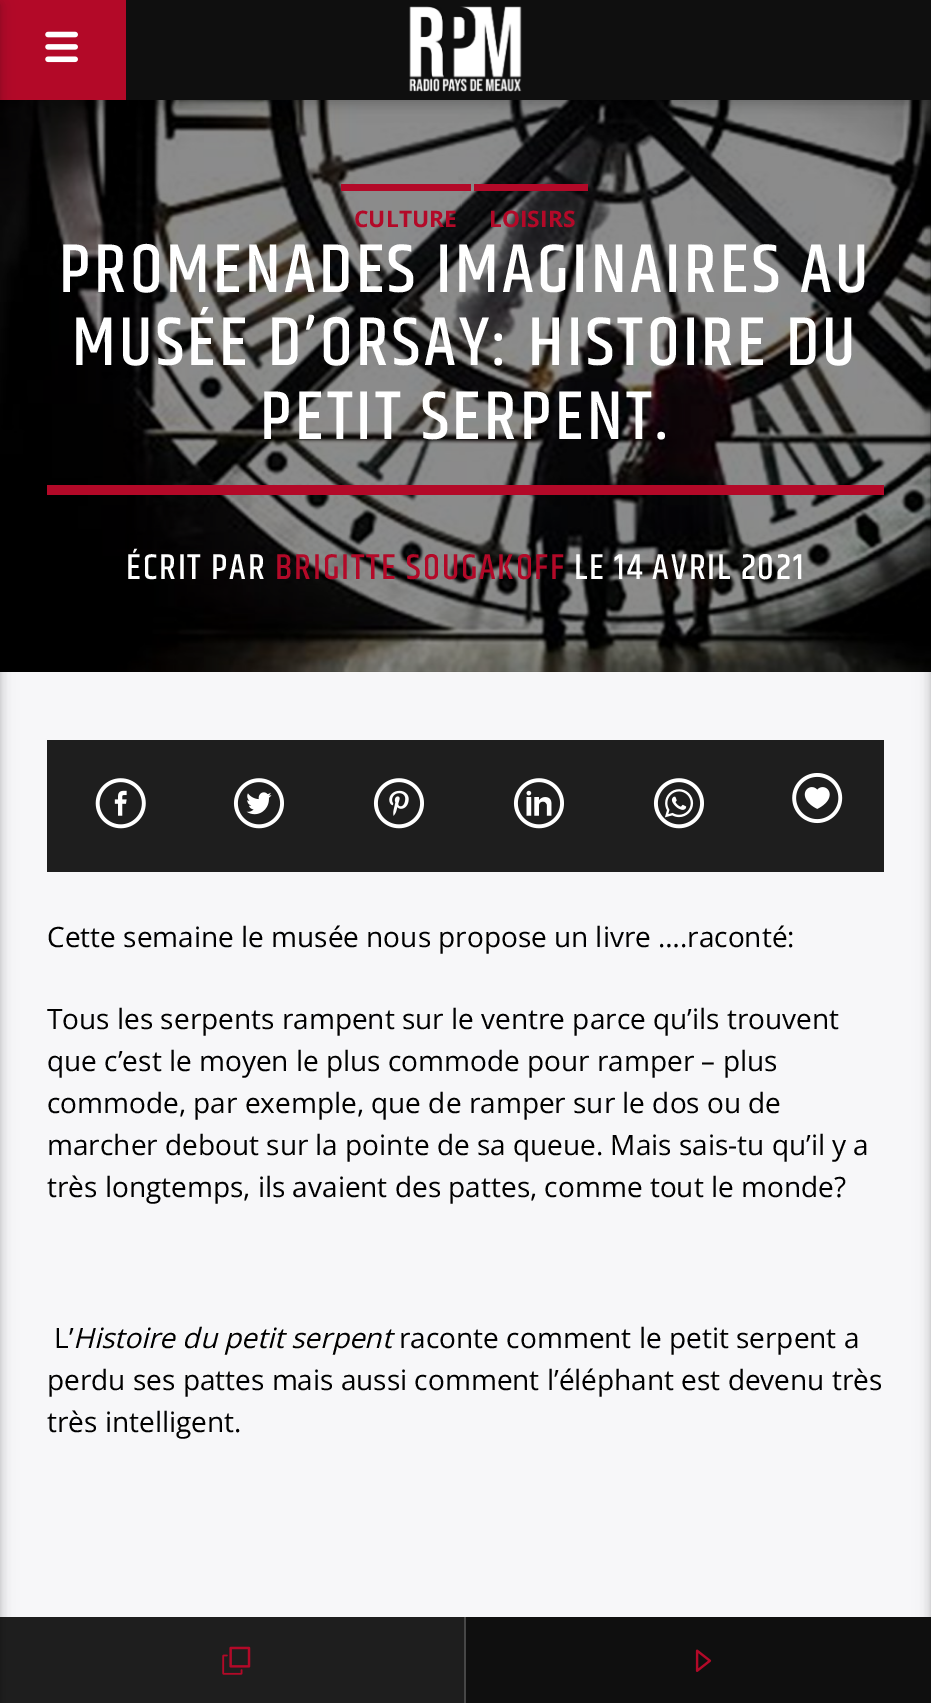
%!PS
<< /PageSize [931 1703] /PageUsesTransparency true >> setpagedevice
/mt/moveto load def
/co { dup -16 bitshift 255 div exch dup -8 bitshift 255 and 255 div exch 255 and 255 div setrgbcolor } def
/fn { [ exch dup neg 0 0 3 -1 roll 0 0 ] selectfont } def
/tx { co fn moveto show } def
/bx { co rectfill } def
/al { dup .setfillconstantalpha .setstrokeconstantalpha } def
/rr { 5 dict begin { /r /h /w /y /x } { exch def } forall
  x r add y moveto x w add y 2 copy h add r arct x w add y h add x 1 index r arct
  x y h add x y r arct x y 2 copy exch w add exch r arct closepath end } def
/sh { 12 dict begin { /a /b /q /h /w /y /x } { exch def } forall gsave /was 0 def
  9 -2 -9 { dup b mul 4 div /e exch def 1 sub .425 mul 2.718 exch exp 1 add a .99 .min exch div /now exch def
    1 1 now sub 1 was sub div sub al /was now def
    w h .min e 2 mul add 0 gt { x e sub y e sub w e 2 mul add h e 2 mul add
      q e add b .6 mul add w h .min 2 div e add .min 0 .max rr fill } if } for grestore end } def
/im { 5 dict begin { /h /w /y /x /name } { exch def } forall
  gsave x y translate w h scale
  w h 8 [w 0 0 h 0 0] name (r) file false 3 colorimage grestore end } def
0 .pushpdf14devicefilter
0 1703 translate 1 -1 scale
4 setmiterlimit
0 0 931 1703 16#F7F7F9 bx
0 100 931 572 16#000000 bx
(media/3.raw) 0 100 931 572 im
0 4 931 99 0 9 .12 sh
0 4 931 99 0 4.5 .16 sh
126 0 805 100 16#0F0F0F bx
0 0 126 100 16#B30928 bx
(media/1.raw) 45 31 33 32 im
(media/2.raw) 409 6 113 86 im
0 1617 464 86 16#1E1E1E bx
16#000000 co
-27 4 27 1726 0 9 .12 sh
-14 4 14 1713 0 4.5 .16 sh
341 184 130 7 16#B30928 bx
474 184 114 7 16#B30928 bx
47 485 837 10 16#B30928 bx
47 740 837 132 16#1E1E1E bx
(media/4.raw) 95 778 51 51 im
(media/5.raw) 233 778 51 51 im
(media/6.raw) 373 778 51 51 im
(media/7.raw) 513 778 51 51 im
(media/8.raw) 653 778 51 51 im
(media/9.raw) 792 773 51 51 im
466 1617 465 86 16#0F0F0F bx
16#000000 co
931 4 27 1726 0 9 .12 sh
931 4 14 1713 0 4.5 .16 sh
464 1617 2 86 16#474747 bx
(media/10.raw) 222 1646 29 29 im
(media/11.raw) 695 1649 17 23 im
(CULTURE) 354 227 /OpenSans-Bold 22.75 16#B30928 tx
(LOISIRS) 489 227 /OpenSans-Bold 22.75 16#B30928 tx
/Khand-Medium 70 fn
16#FFFFFF co
59 292 mt 3.5 0 (PROMENADES IMAGINAIRES AU) ashow
72 365 mt 3.5 0 (MUSÉE D’ORSAY: HISTOIRE DU) ashow
260 439 mt 3.5 0 (PETIT SERPENT.) ashow
/Khand-Medium 36.5 fn
126 579 mt 1.8 0 (ÉCRIT PAR) ashow
16#B30928 co
275 579 mt 1.8 0 (BRIGITTE SOUGAKOFF) ashow
16#FFFFFF co
574 579 mt 1.8 0 (LE 14 AVRIL 2021) ashow
(Cette semaine le musée nous propose un livre ….raconté:) 47 947 /OpenSans-Regular 28 16#000000 tx
(Tous les serpents rampent sur le ventre parce qu’ils trouvent) 47 1029 /OpenSans-Regular 28 16#000000 tx
(que c’est le moyen le plus commode pour ramper – plus) 47 1071 /OpenSans-Regular 28 16#000000 tx
(commode, par exemple, que de ramper sur le dos ou de) 47 1113 /OpenSans-Regular 28 16#000000 tx
(marcher debout sur la pointe de sa queue. Mais sais-tu qu’il y a) 47 1155 /OpenSans-Regular 28 16#000000 tx
(très longtemps, ils avaient des pattes, comme tout le monde?) 47 1197 /OpenSans-Regular 28 16#000000 tx
(L’) 54 1348 /OpenSans-Regular 28 16#000000 tx
(Histoire du petit serpent) 73 1348 /OpenSans-Italic 28 16#000000 tx
(raconte comment le petit serpent a) 399 1348 /OpenSans-Regular 28 16#000000 tx
(perdu ses pattes mais aussi comment l’éléphant est devenu très) 47 1390 /OpenSans-Regular 28 16#000000 tx
(très intelligent.) 47 1432 /OpenSans-Regular 28 16#000000 tx
.poppdf14devicefilter showpage
